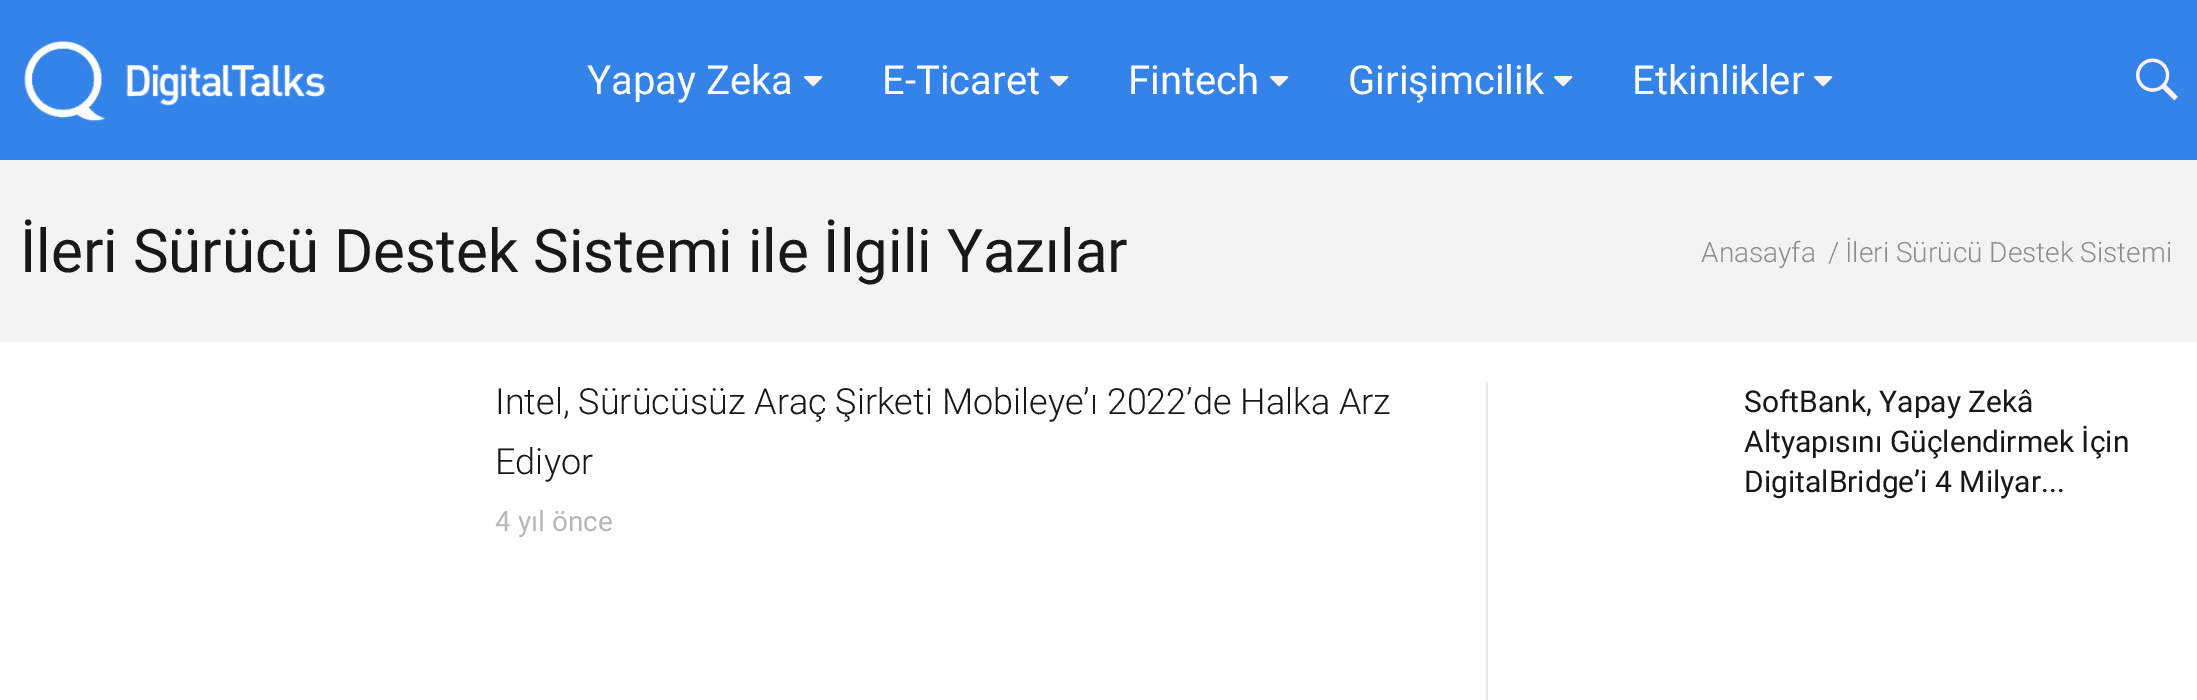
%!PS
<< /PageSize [2197 700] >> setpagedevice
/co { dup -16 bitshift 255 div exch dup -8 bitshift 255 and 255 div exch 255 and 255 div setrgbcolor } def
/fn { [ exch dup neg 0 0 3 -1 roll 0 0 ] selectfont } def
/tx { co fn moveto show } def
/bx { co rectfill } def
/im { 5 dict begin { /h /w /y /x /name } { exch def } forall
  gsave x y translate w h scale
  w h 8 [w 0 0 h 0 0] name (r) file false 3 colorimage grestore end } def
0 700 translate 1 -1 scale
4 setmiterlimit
0 0 2197 700 16#FFFFFF bx
0 0 2197 160 16#3483E8 bx
(media/1.raw) 24 41 301 81 im
(media/2.raw) 804 76 19 11 im
(media/2.raw) 1050 76 19 11 im
(media/2.raw) 1270 76 19 11 im
(media/2.raw) 1554 76 19 11 im
(media/2.raw) 1814 76 19 11 im
(media/3.raw) 2136 58 42 43 im
0 160 2197 182 16#F3F3F3 bx
1486 382 2 318 16#EAEAEA bx
(Yapay Zeka) 587 94 /Roboto-Regular 40 16#FCFCFC tx
(E-Ticaret) 882 94 /Roboto-Regular 40 16#FCFCFC tx
(Fintech) 1128 94 /Roboto-Regular 40 16#FCFCFC tx
(Girişimcilik) 1348 94 /Roboto-Regular 40 16#FCFCFC tx
(Etkinlikler) 1632 94 /Roboto-Regular 40 16#FCFCFC tx
(İleri Sürücü Destek Sistemi ile İlgili Yazılar) 20 272 /Roboto-Regular 60 16#181818 tx
(Anasayfa) 1701 262 /Roboto-Light 28 16#8B8C8E tx
(/) 1828 262 /Roboto-Light 28 16#8B8C8E tx
(İleri Sürücü Destek Sistemi) 1845 262 /Roboto-Light 28 16#8B8C8E tx
(Intel, Sürücüsüz Araç Şirketi Mobileye’ı 2022’de Halka Arz) 495 414 /Roboto-Light 36 16#181818 tx
(Ediyor) 495 474 /Roboto-Light 36 16#181818 tx
(4 yıl önce) 495 531 /Roboto-Regular 28 16#B7B7B7 tx
(SoftBank, Yapay Zekâ) 1744 412 /Roboto-Regular 30 16#181818 tx
(Altyapısını Güçlendirmek İçin) 1744 452 /Roboto-Regular 30 16#181818 tx
(DigitalBridge’i 4 Milyar...) 1744 492 /Roboto-Regular 30 16#181818 tx
showpage
